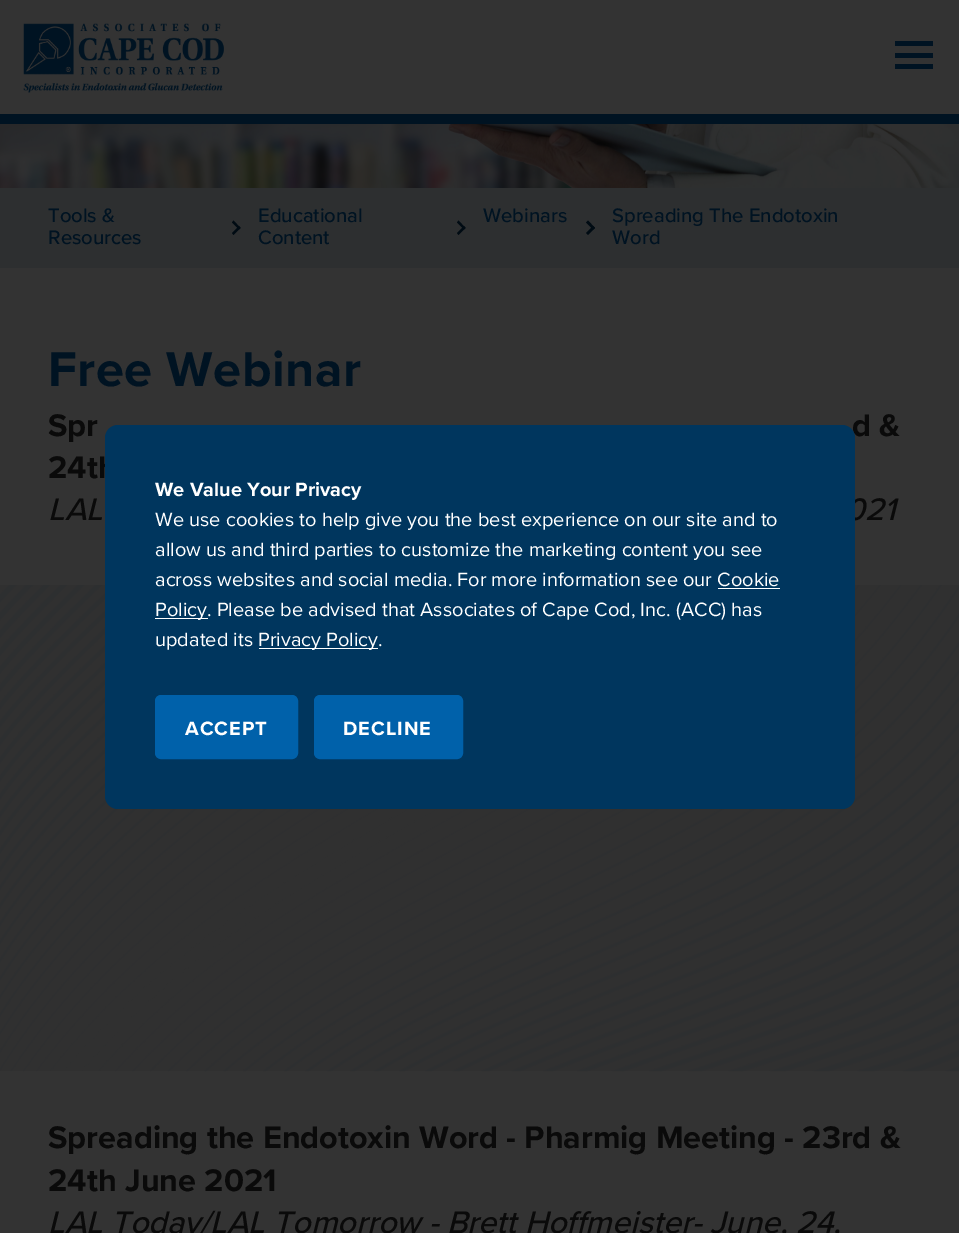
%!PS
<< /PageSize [959 1233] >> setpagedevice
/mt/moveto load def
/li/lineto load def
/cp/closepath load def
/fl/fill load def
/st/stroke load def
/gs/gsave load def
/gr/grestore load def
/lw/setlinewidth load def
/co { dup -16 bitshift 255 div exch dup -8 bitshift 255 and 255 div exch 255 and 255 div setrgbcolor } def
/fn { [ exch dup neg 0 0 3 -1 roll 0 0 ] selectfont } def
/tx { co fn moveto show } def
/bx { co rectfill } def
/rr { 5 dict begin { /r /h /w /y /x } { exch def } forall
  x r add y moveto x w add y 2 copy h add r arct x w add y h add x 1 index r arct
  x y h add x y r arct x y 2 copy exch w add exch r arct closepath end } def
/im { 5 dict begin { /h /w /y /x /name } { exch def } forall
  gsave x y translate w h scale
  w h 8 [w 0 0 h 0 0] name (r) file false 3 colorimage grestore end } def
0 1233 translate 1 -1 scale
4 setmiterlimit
0 0 959 1233 16#333333 bx
0 114 959 10 16#001322 bx
(media/1.raw) 23 23 201 70 im
895 53 38 5 16#001322 bx
895 41 38 5 16#001322 bx
895 64 38 5 16#001322 bx
(media/2.raw) 0 124 959 64 im
0 188 959 80 16#2D2F30 bx
16#000B13 co
232 222.5 mt 233.5 220.5 li 240.5 228 li 239 229.5 li cp fl
232 233 mt 239 226 li 240.5 228 li 233.5 235 li cp fl
457 222.5 mt 458.5 220.5 li 465.5 228 li 464 229.5 li cp fl
457 233 mt 464 226 li 465.5 228 li 458.5 235 li cp fl
586 222.5 mt 588 220.5 li 595 228 li 593 229.5 li cp fl
586 233 mt 593 226 li 595 228 li 588 235 li cp fl
0 585 959 486 16#303030 bx
(media/3.raw) 0 585 959 487 im
(Tools &) 48 222 /ProximaNova-Medium 20.25 16#001322 tx
(Resources) 48 244 /ProximaNova-Medium 20.25 16#001322 tx
(Educational) 258 222 /ProximaNova-Medium 20.25 16#001322 tx
(Content) 258 244 /ProximaNova-Medium 20.25 16#001322 tx
(Webinars) 483 222 /ProximaNova-Medium 20.25 16#001322 tx
(Spreading The Endotoxin) 612 222 /ProximaNova-Medium 20.25 16#001322 tx
(Word) 612 244 /ProximaNova-Medium 20.25 16#001322 tx
/ProximaNova-Bold 50.5 fn
48 386 mt .5 0 (Free Webinar) ashow
(Spr) 48 436 /ProximaNova-Bold 32.4 16#0A0A0A tx
(d &) 852 436 /ProximaNova-Bold 32.4 16#0A0A0A tx
(24th) 48 478 /ProximaNova-Bold 32.4 16#0A0A0A tx
(LAL) 48 520 /ProximaNova-MediumItalic 32.4 16#0A0A0A tx
(021) 845 520 /ProximaNova-MediumItalic 32.4 16#0A0A0A tx
(Spreading the Endotoxin Word - Pharmig Meeting - 23rd &) 48 1148 /ProximaNova-Bold 32.4 16#0A0A0A tx
(24th June 2021) 48 1191 /ProximaNova-Bold 32.4 16#0A0A0A tx
(LAL Today/LAL Tomorrow - Brett Hoffmeister- June, 24,) 48 1233 /ProximaNova-MediumItalic 32.4 16#0A0A0A tx
16#00365E co
105 425 750 384 13 rr fl
(We Value Your Privacy) 155 496 /ProximaNova-Bold 20 16#FFFFFF tx
(We use cookies to help give you the best experience on our site and to) 155 526 /ProximaNova-Regular 20 16#FFFFFF tx
(allow us and third parties to customize the marketing content you see) 155 556 /ProximaNova-Regular 20 16#FFFFFF tx
(across websites and social media. For more information see our Cookie) 155 586 /ProximaNova-Regular 20 16#FFFFFF tx
718 588 62 1 16#FFFFFF bx
155 618 53 1 16#FFFFFF bx
(Policy. Please be advised that Associates of Cape Cod, Inc. \(ACC\) has) 155 616 /ProximaNova-Regular 20 16#FFFFFF tx
(updated its) 155 646 /ProximaNova-Regular 20 16#FFFFFF tx
259 648 119 1 16#FFFFFF bx
(Privacy Policy.) 258 646 /ProximaNova-Regular 20 16#FFFFFF tx
16#0061AA co
156.5 696.5 140 61 4.5 rr gs fl gr
3 lw
st
/ProximaNova-Bold 20 fn
16#FFFFFF co
185 735 mt 1 0 (ACCEPT) ashow
16#0061AA co
315.5 696.5 146 61 4.5 rr gs fl gr
st
16#FFFFFF co
343 735 mt 1 0 (DECLINE) ashow
showpage
